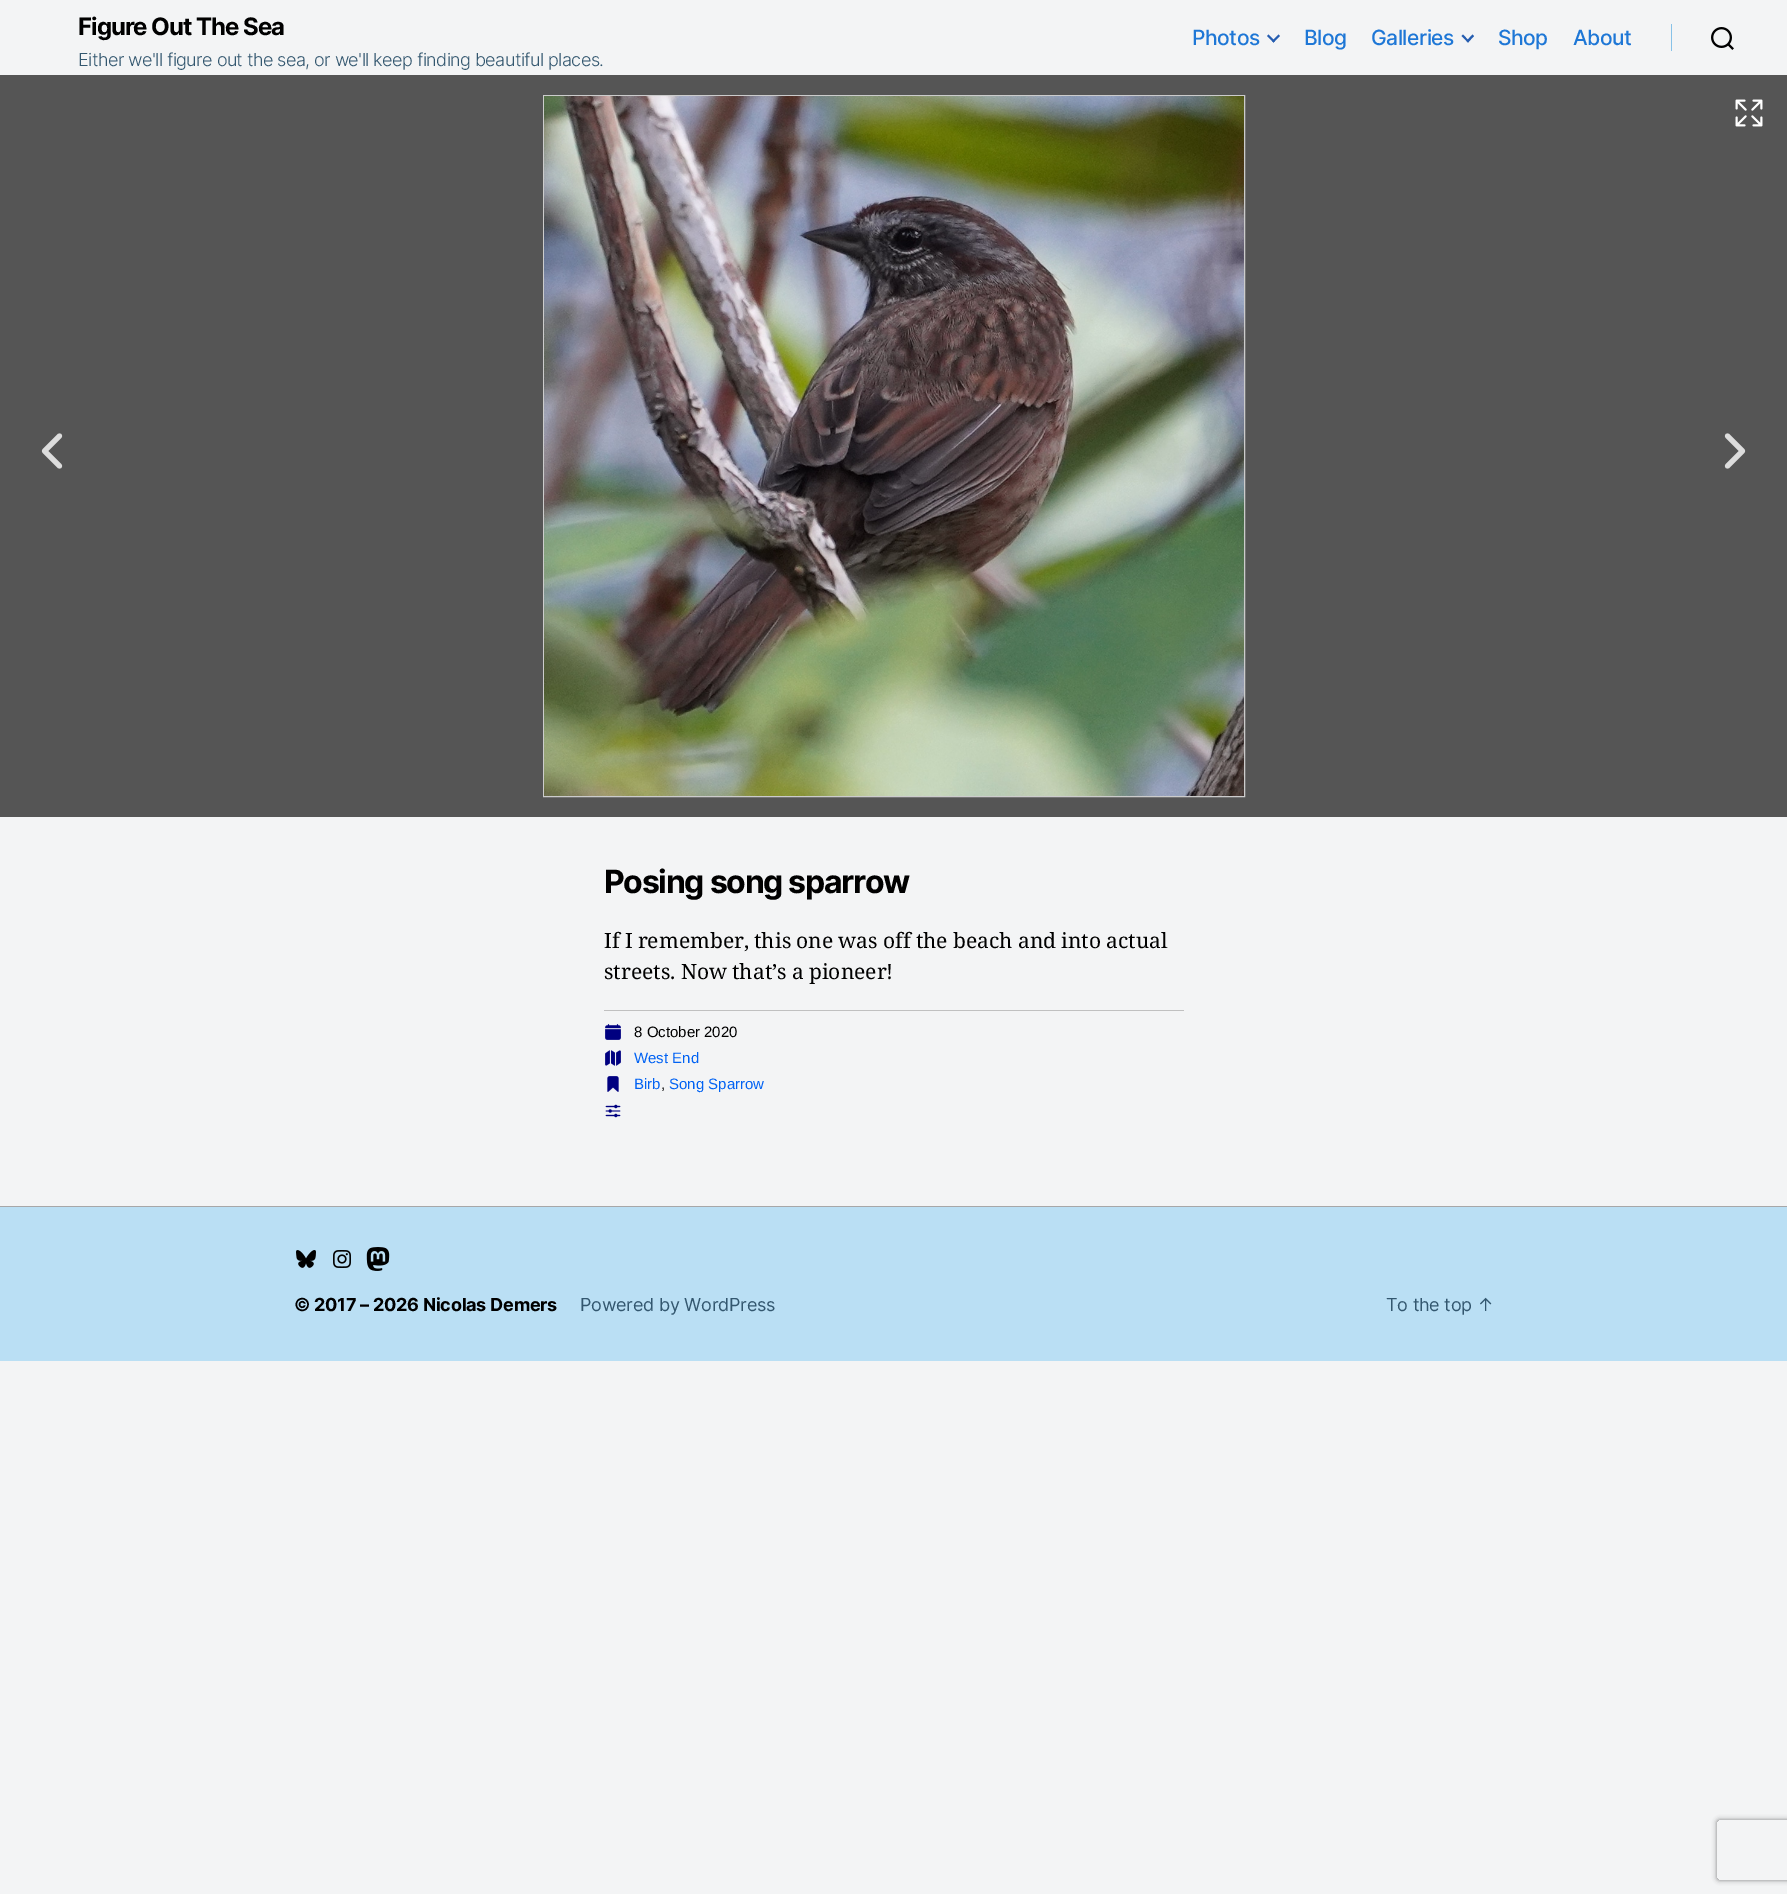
%!PS
<< /PageSize [1787 1894] /PageUsesTransparency true >> setpagedevice
/mt/moveto load def
/li/lineto load def
/ct/curveto load def
/cp/closepath load def
/fl/fill load def
/st/stroke load def
/gs/gsave load def
/gr/grestore load def
/lw/setlinewidth load def
/co { dup -16 bitshift 255 div exch dup -8 bitshift 255 and 255 div exch 255 and 255 div setrgbcolor } def
/fn { [ exch dup neg 0 0 3 -1 roll 0 0 ] selectfont } def
/tx { co fn moveto show } def
/bx { co rectfill } def
/al { dup .setfillconstantalpha .setstrokeconstantalpha } def
/rr { 5 dict begin { /r /h /w /y /x } { exch def } forall
  x r add y moveto x w add y 2 copy h add r arct x w add y h add x 1 index r arct
  x y h add x y r arct x y 2 copy exch w add exch r arct closepath end } def
/sh { 12 dict begin { /a /b /q /h /w /y /x } { exch def } forall gsave /was 0 def
  9 -2 -9 { dup b mul 4 div /e exch def 1 sub .425 mul 2.718 exch exp 1 add a .99 .min exch div /now exch def
    1 1 now sub 1 was sub div sub al /was now def
    w h .min e 2 mul add 0 gt { x e sub y e sub w e 2 mul add h e 2 mul add
      q e add b .6 mul add w h .min 2 div e add .min 0 .max rr fill } if } for grestore end } def
/im { 5 dict begin { /h /w /y /x /name } { exch def } forall
  gsave x y translate w h scale
  w h 8 [w 0 0 h 0 0] name (r) file false 3 colorimage grestore end } def
0 .pushpdf14devicefilter
0 1894 translate 1 -1 scale
4 setmiterlimit
0 0 1787 1894 16#F3F4F5 bx
16#255DB0 co
1267 36 mt 1268.5 34.5 li 1275 41 li 1273.5 42.5 li cp fl
1272 41 mt 1278.5 34.5 li 1280 36 li 1273.5 42.5 li cp fl
1461.5 36 mt 1463 34.5 li 1469 41 li 1468 42.5 li cp fl
1466.5 41 mt 1472.5 34.5 li 1474 36 li 1468 42.5 li cp fl
1671 24 1 27 16#87C2E8 bx
(media/1.raw) 1711 27 23 23 im
0 75 1787 742 16#555555 bx
16#CCCCCC co
543.5 95.5 701 701 rectstroke
(media/2.raw) 544 96 700 700 im
(media/3.raw) 1735 99 28 28 im
16#DDDDDD co
5.1 lw
1 setlinecap
1 setlinejoin
59.5 436 mt 44.5 451 li 59.5 466 li st
1727.5 436 mt 1742.5 451 li 1727.5 466 li st
604 1010 580 1 16#C0C0C0 bx
(media/4.raw) 605 1024 16 16 im
(media/5.raw) 605 1050 16 16 im
(media/6.raw) 607 1076 12 16 im
(media/7.raw) 605 1104 16 14 im
0 1207 1787 154 16#BADFF4 bx
0 1206 1787 1 16#A7A7A8 bx
(media/8.raw) 296 1250 20 18 im
(media/9.raw) 333 1250 18 18 im
(media/10.raw) 366 1247 24 24 im
gs
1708 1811 mt 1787 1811 li 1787 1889 li 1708 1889 li cp 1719 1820 mt 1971 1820 li 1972 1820 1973 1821 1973 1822 ct 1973 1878 li 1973 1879 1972 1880 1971 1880 ct 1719 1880 li 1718 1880 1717 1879 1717 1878 ct 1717 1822 li 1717 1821 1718 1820 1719 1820 ct cp eoclip newpath
16#808080 co
1717 1820 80 60 2 2.5 1 sh
gr
/Inter-Bold 24 fn
16#000000 co
78 35 mt -1 0 (Figure Out The Sea) ashow
/Inter-Light 18 fn
16#33576F co
78 66 mt -.55 0 (Either we'll figure out the sea, or we'll keep finding beautiful places.) ashow
/Inter-Medium 21 fn
16#1E77D6 co
1192 45 mt -.5 0 (Photos) ashow
1304 45 mt -.5 0 (Blog) ashow
1371 45 mt -.5 0 (Galleries) ashow
1498 45 mt -.5 0 (Shop) ashow
1573 45 mt -.5 0 (About) ashow
/Inter-Bold 32 fn
16#000000 co
604 893 mt -1.3 0 (Posing song sparrow) ashow
/NotoSerif-Regular 21 fn
604 948 mt -.25 0 32 (If I remember, this one was off the beach and into actual) widthshow
604 979 mt -.25 0 32 (streets. Now that’s a pioneer!) widthshow
(8 October 2020) 634 1037 /LiberationSans-Regular 15 16#000000 tx
(West End) 634 1063 /LiberationSans-Regular 15 16#0162F3 tx
(Birb) 634 1089 /LiberationSans-Regular 15 16#0162F3 tx
(,) 661 1089 /LiberationSans-Regular 15 16#000000 tx
(Song Sparrow) 669 1089 /LiberationSans-Regular 15 16#0162F3 tx
/Inter-Bold 18 fn
16#000000 co
294 1311 mt -.25 0 (© 2017 – 2026 Nicolas Demers) ashow
/Inter-Regular 18 fn
16#33576F co
580 1311 mt -.25 0 (Powered by WordPress) ashow
1386 1311 mt -.25 0 (To the top ↑) ashow
.poppdf14devicefilter showpage
